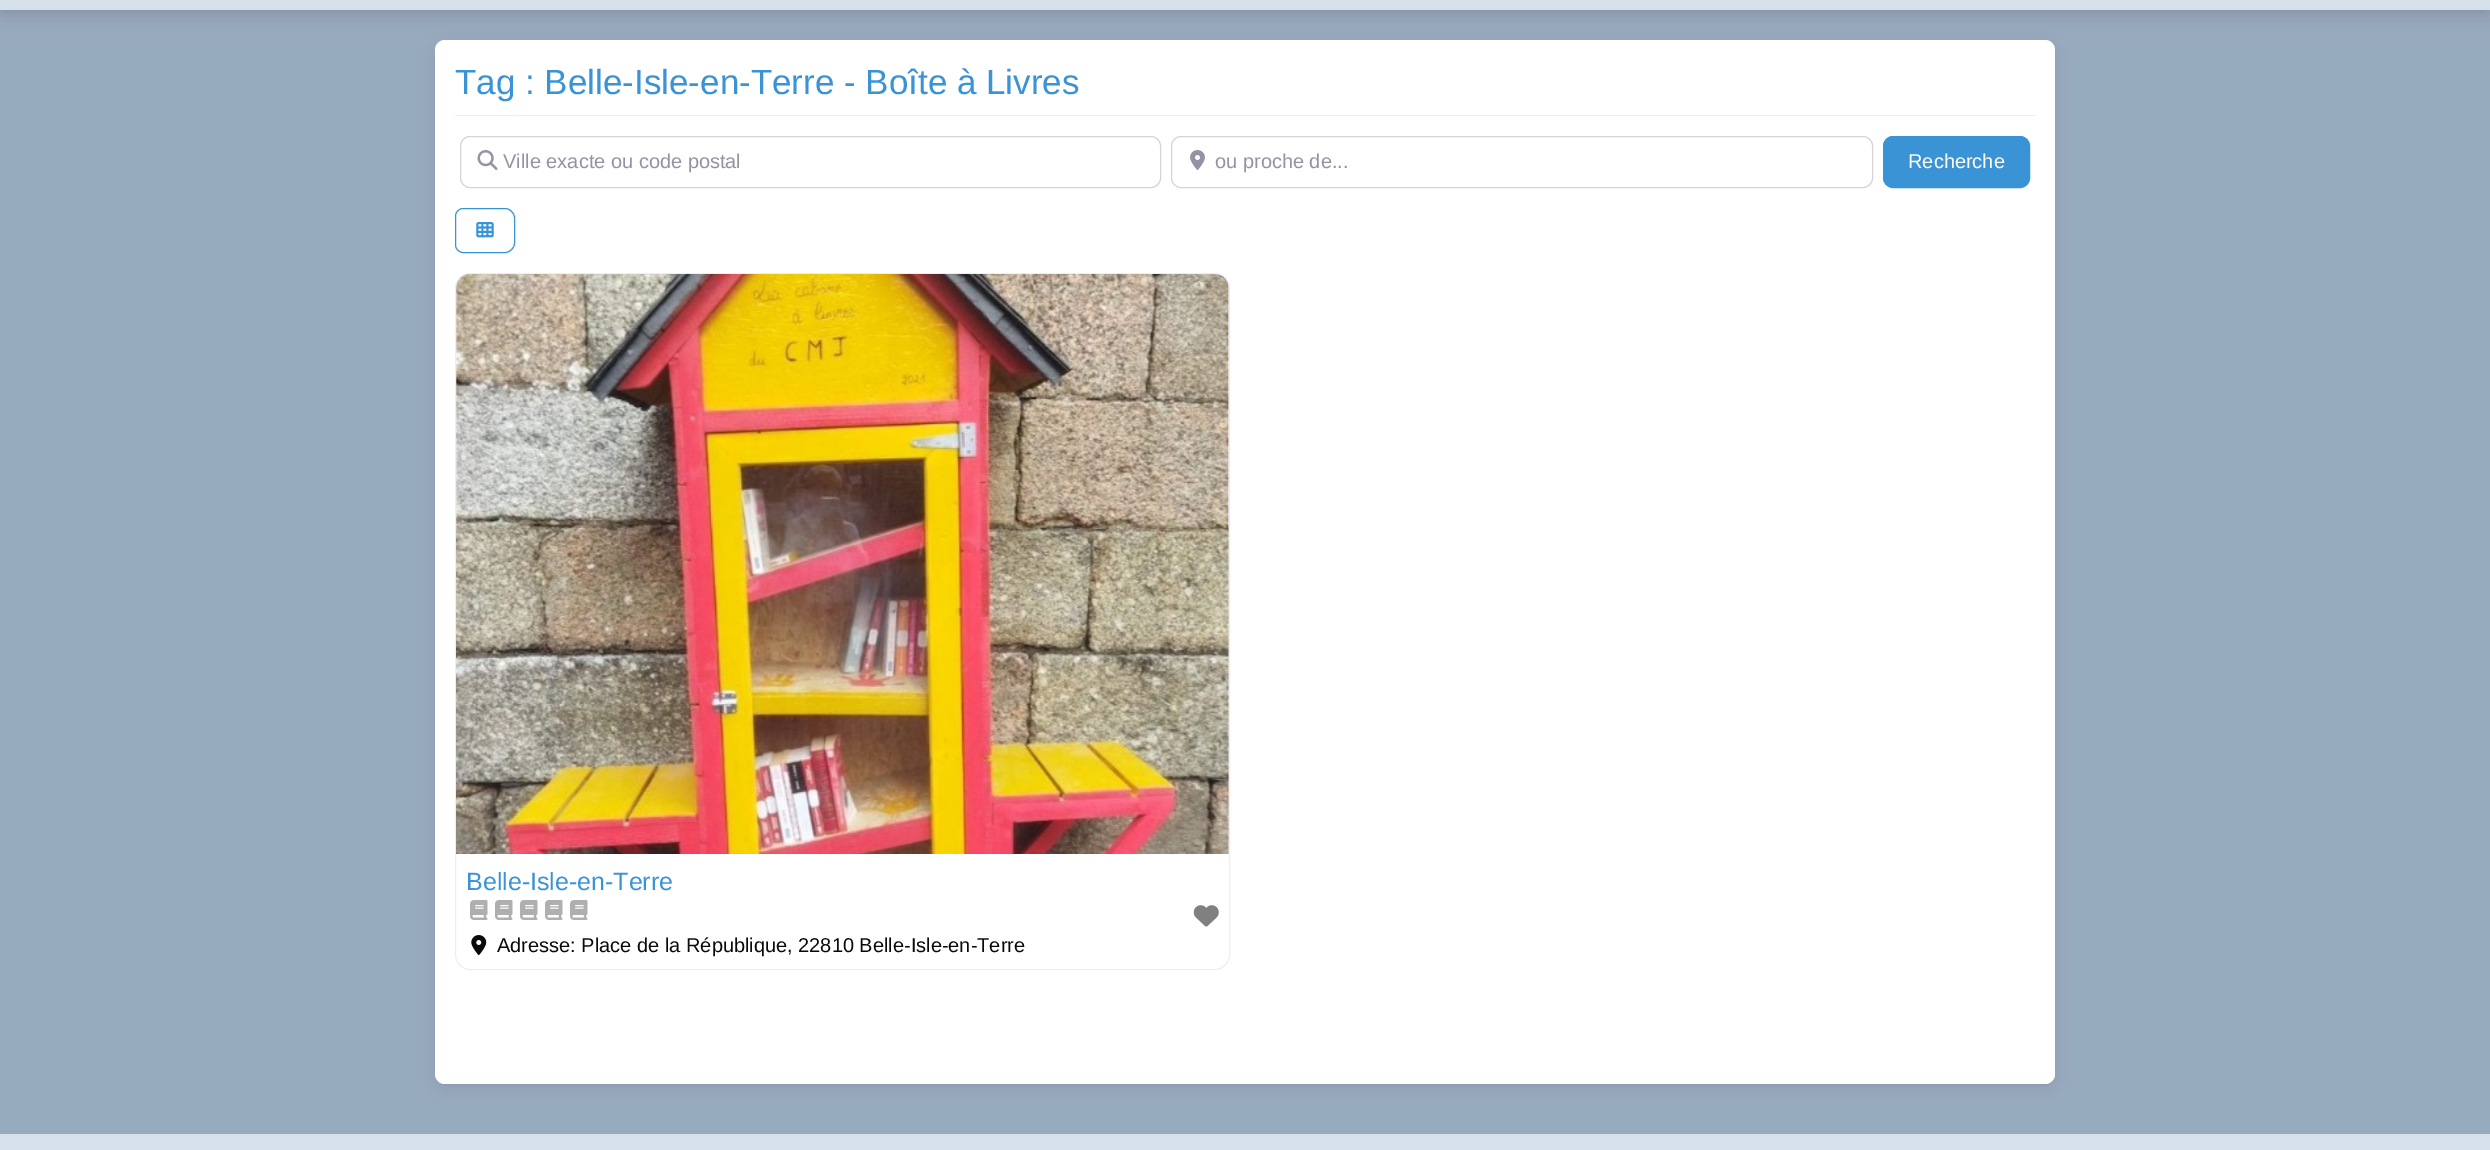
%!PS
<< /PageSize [2490 1150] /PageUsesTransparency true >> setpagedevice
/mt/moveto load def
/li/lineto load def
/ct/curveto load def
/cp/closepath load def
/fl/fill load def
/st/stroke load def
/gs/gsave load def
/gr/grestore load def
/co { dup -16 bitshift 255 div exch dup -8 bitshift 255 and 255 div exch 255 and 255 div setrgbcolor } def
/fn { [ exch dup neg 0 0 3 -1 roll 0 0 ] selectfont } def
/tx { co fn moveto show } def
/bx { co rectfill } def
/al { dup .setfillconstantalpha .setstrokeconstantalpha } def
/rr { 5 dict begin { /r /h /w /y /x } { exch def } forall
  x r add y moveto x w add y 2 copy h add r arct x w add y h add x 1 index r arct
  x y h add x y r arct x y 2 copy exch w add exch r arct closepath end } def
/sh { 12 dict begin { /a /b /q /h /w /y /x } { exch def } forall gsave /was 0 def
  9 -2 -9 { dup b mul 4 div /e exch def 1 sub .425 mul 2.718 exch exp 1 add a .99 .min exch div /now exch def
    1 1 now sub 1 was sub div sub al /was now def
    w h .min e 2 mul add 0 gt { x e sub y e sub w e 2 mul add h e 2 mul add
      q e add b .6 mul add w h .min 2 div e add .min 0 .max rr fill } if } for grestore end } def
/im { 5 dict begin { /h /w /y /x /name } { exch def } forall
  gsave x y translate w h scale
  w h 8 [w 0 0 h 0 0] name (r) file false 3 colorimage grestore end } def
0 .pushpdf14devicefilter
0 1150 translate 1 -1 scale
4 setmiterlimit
0 0 2490 1150 16#97ABBF bx
16#1F1B2D co
0 -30 2490 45 0 10 .12 sh
5 -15 2480 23 0 5 .12 sh
0 0 2490 10 16#D5E0EB bx
16#1F1B2D co
435 45 1620 1044 10 7.5 .08 sh
438 45 1615 1039 8 1 .08 sh
16#FFFFFF co
435 40 1620 1044 10 rr fl
455 115 1580 1 16#EFECF3 bx
16#D5D2DC co
460.5 136.5 700 51 9.5 rr st
(media/1.raw) 477 150 21 20 im
1171.5 136.5 701 51 9.5 rr st
(media/2.raw) 1190 150 15 20 im
16#3993D5 co
1883.5 136.5 146 51 9.5 rr gs fl gr
st
463 208.5 mt 505 208.5 li 510 208.5 514.5 213 514.5 218 ct 514.5 243 li 514.5 248 510 252.5 505 252.5 ct 463 252.5 li 459 252.5 455.5 249 455.5 245 ct 455.5 216 li 455.5 212 459 208.5 463 208.5 ct cp st
(media/3.raw) 476 222 18 16 im
16#EFECF3 co
455.5 273.5 774 696 14.5 rr st
(media/4.raw) 456 274 773 580 im
(media/5.raw) 470 900 18 20 im
(media/5.raw) 495 900 18 20 im
(media/5.raw) 520 900 18 20 im
(media/5.raw) 545 900 18 20 im
(media/5.raw) 570 900 18 20 im
(media/6.raw) 1193 905 26 22 im
(media/7.raw) 471 935 16 20 im
0 1134 2490 16 16#D5E0EB bx
(Tag : Belle-Isle-en-Terre - Boîte à Livres) 455 94 /LiberationSans-Regular 35 16#3993D5 tx
(Ville exacte ou code postal) 503 168 /LiberationSans-Regular 20 16#9691A4 tx
(ou proche de...) 1215 168 /LiberationSans-Regular 20 16#9691A4 tx
(Recherche) 1908 168 /LiberationSans-Regular 20 16#FFFFFF tx
(Belle-Isle-en-Terre) 466 890 /LiberationSans-Regular 25 16#3993D5 tx
(Adresse: Place de la République, 22810 Belle-Isle-en-Terre) 497 952 /LiberationSans-Regular 20 16#0A0A0A tx
.poppdf14devicefilter showpage
